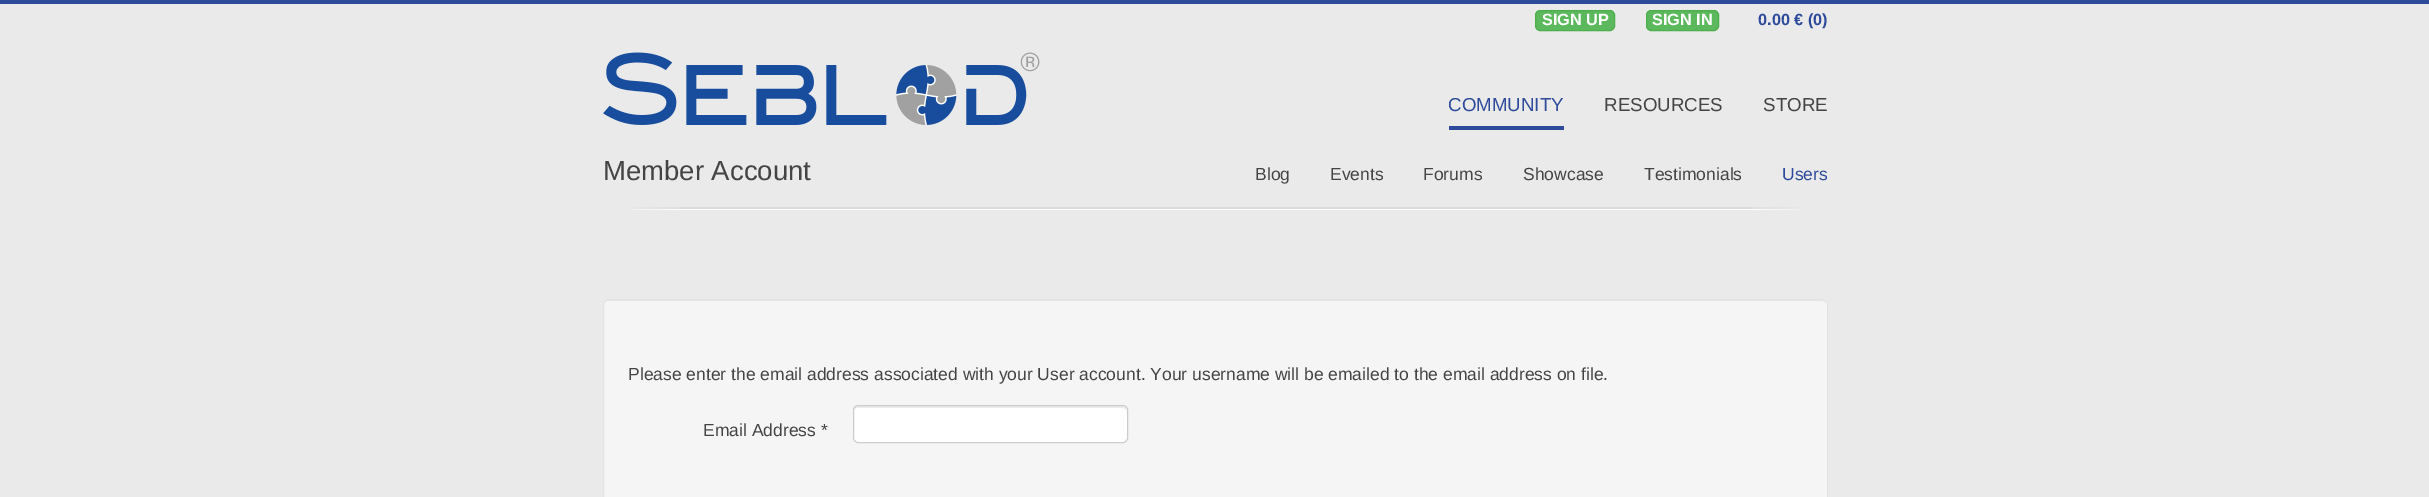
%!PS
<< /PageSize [2429 497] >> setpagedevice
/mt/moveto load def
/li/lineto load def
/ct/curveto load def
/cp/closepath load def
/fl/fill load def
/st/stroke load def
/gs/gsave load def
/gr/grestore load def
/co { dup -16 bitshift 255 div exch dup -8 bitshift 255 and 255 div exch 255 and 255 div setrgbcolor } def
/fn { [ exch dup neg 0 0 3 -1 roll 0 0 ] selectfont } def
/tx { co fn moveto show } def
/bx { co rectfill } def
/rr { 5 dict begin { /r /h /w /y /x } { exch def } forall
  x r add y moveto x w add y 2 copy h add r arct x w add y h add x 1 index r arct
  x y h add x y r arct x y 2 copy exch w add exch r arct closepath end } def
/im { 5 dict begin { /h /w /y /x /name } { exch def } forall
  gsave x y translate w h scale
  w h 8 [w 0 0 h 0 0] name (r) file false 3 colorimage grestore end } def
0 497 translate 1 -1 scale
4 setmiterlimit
0 0 2429 497 16#EAEAEA bx
0 0 2429 4 16#2E4B9B bx
16#5CB85C co
1535.5 10.5 79 20 4.5 rr gs fl gr
16#4CAE4C co
st
16#5CB85C co
1646.5 10.5 72 20 4.5 rr gs fl gr
16#4CAE4C co
st
(media/1.raw) 603 52 437 73 im
1449 126 115 4 16#2E4B9B bx
(media/2.raw) 628 207 1174 3 im
16#F5F5F5 co
603 299 1225 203 5 rr fl
16#E9E9E9 co
608 301 mt 1822 301 li 1825 301 1826 303 1826 305 ct 1826 302 1825 300 1822 300 ct 608 300 li 605 300 604 302 604 305 ct 604 303 605 301 608 301 ct cp fl
16#E3E3E3 co
603.5 299.5 1224 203 4.5 rr st
16#FFFFFF co
853 405 275 38 5 rr fl
16#ECECEC co
858 408 mt 1122 408 li 1125 408 1126 409 1126 411 ct 1126 408 1125 406 1122 406 ct 858 406 li 855 406 854 408 854 411 ct 854 409 855 408 858 408 ct cp fl
16#CCCCCC co
853.5 405.5 274 37 4.5 rr st
(SIGN UP) 1542 25 /LiberationSans-Bold 16.25 16#FFFFFF tx
(SIGN IN) 1652 25 /LiberationSans-Bold 16.25 16#FFFFFF tx
(0.00 € \(0\)) 1758 25 /LiberationSans-Bold 16.25 16#2E4B9B tx
(COMMUNITY) 1448 111 /LiberationSans-Regular 18.75 16#2E4B9B tx
(RESOURCES) 1604 111 /LiberationSans-Regular 18.75 16#444444 tx
(STORE) 1763 111 /LiberationSans-Regular 18.75 16#444444 tx
(Member Account) 603 180 /LiberationSans-Regular 27.5 16#444444 tx
(Blog) 1255 180 /LiberationSans-Regular 17.5 16#444444 tx
(Events) 1330 180 /LiberationSans-Regular 17.5 16#444444 tx
(Forums) 1423 180 /LiberationSans-Regular 17.5 16#444444 tx
(Showcase) 1523 180 /LiberationSans-Regular 17.5 16#444444 tx
(Testimonials) 1644 180 /LiberationSans-Regular 17.5 16#444444 tx
(Users) 1782 180 /LiberationSans-Regular 17.5 16#2E4B9B tx
(Please enter the email address associated with your User account. Your username will be emailed to the email address on file.) 628 380 /LiberationSans-Regular 17.5 16#444444 tx
(Email Address *) 703 436 /LiberationSans-Regular 17.5 16#444444 tx
showpage
